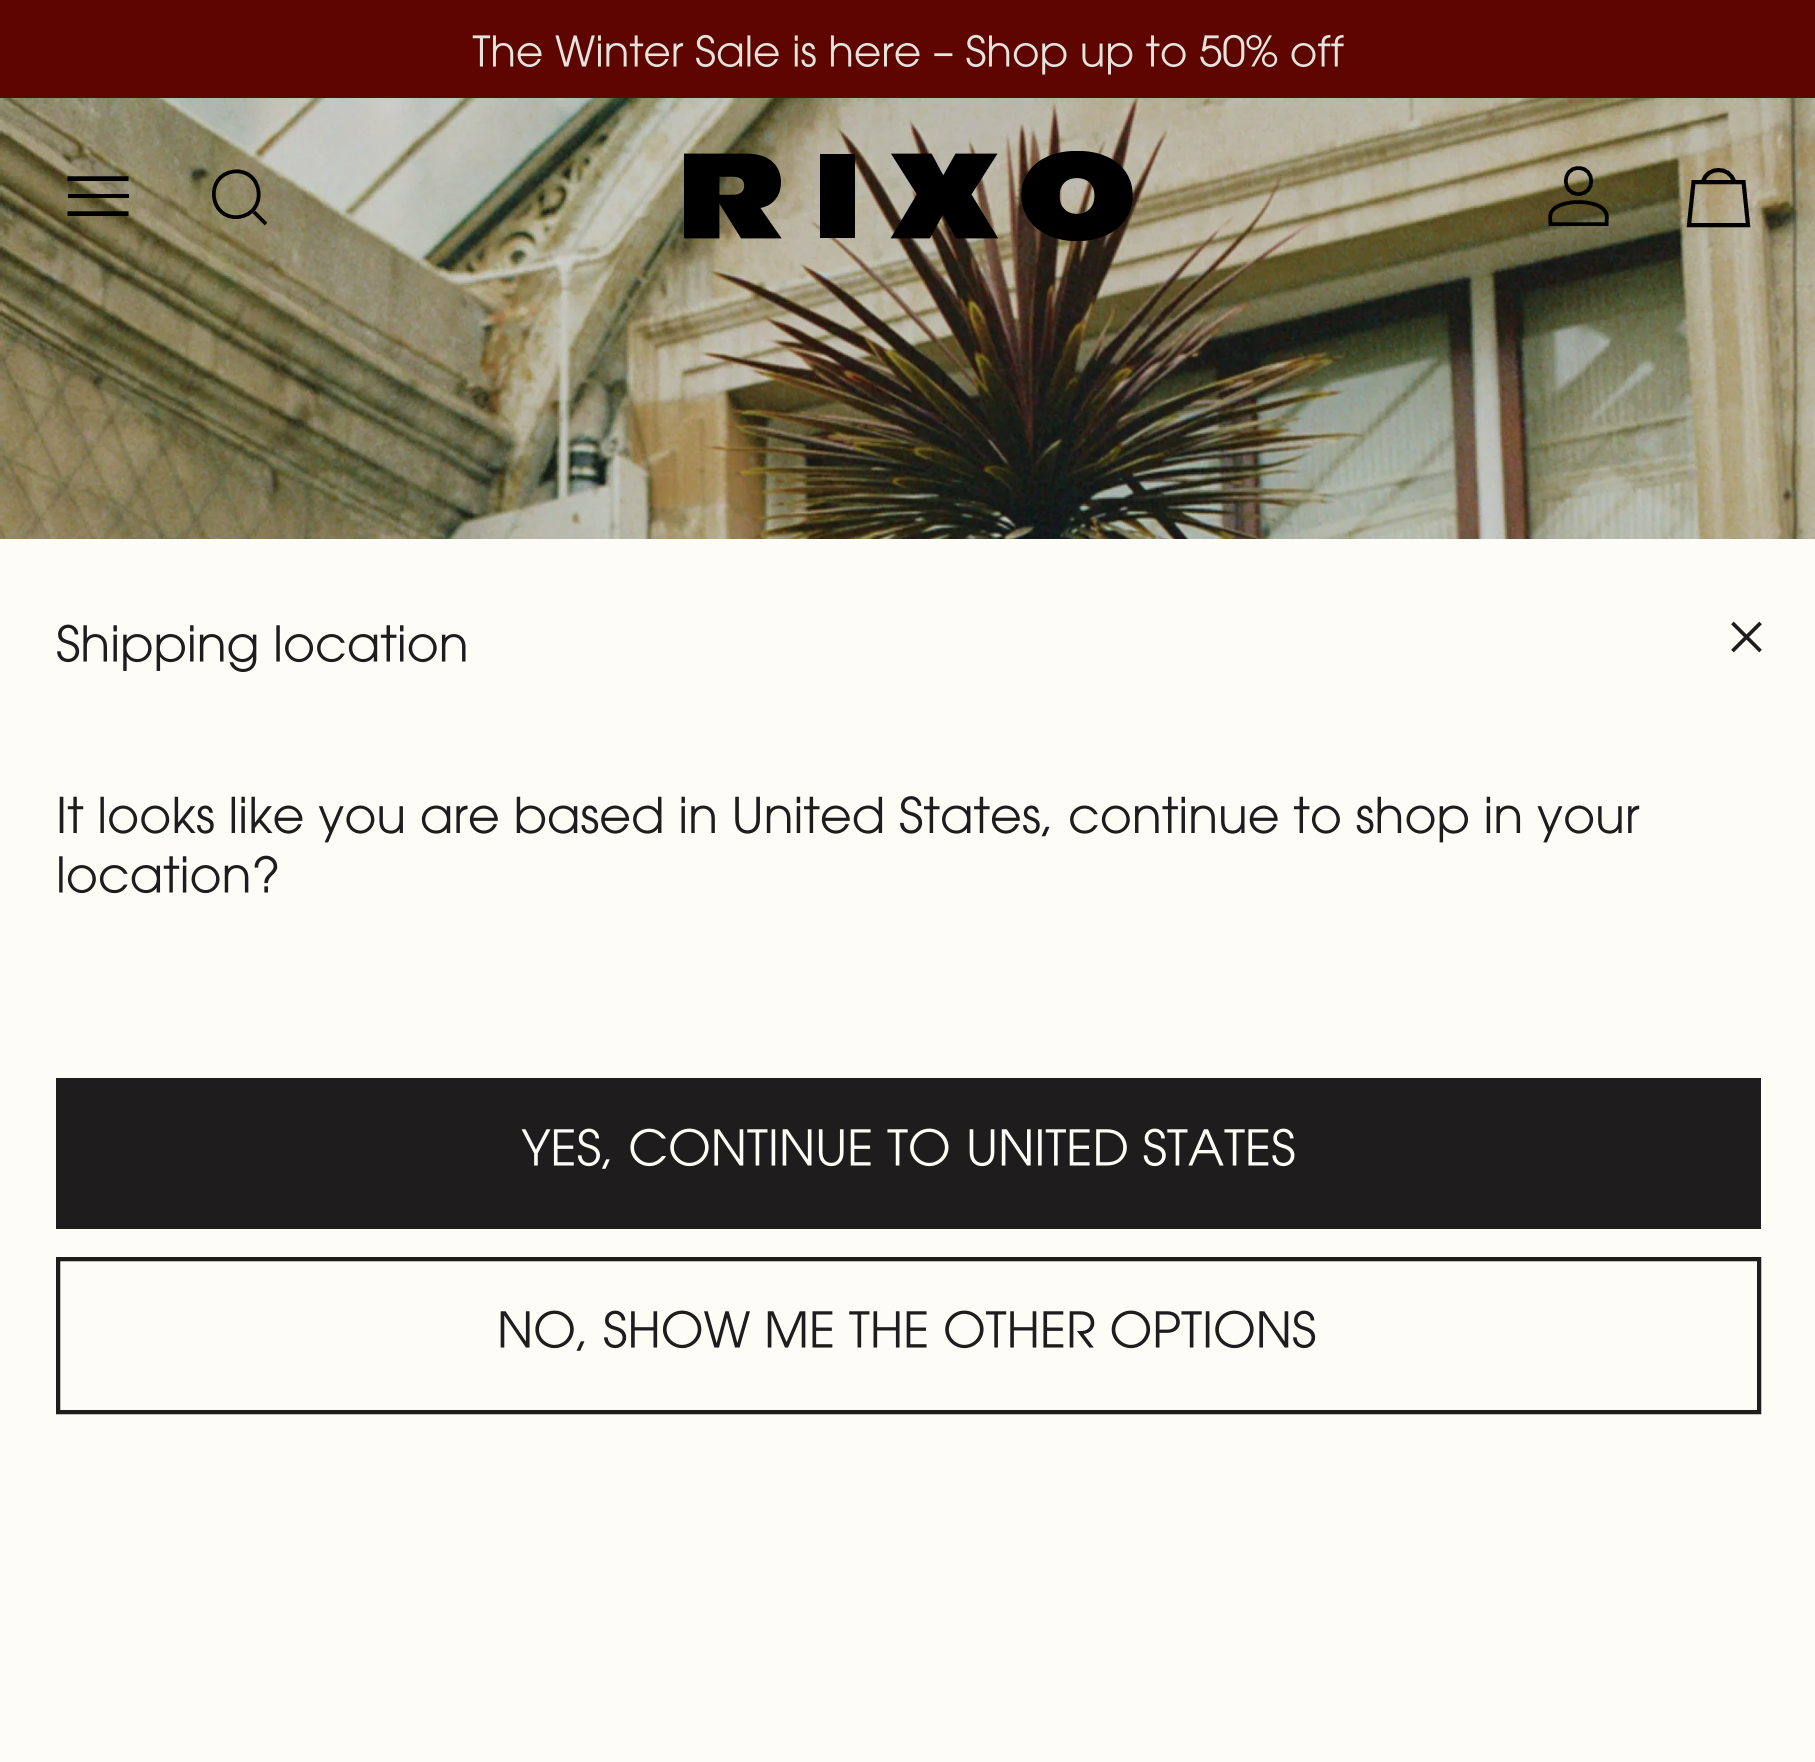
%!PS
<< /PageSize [1815 1762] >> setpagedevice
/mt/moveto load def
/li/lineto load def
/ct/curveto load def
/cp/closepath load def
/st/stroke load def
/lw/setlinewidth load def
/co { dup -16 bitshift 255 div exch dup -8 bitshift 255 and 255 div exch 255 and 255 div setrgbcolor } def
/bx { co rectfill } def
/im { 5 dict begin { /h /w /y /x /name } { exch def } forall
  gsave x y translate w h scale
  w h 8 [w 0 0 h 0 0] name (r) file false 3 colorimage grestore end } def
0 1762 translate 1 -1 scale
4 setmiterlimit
0 0 1815 1762 16#FFFFFF bx
0 0 1815 98 16#5F0500 bx
(media/1.raw) 472 34 872 41 im
(media/3.raw) 0 98 1815 441 im
16#000000 co
4.4 lw
67.5 178.5 mt 128.5 178.5 li st
68 194 61 4 16#000000 bx
67.5 213.5 mt 128.5 213.5 li st
3.5 lw
238.5 217 mt 209 220 204 175 234 171.5 ct 263.5 168.5 268.5 213.5 238.5 217 ct cp 266 224 mt 254 212 li st
(media/2.raw) 684 151 449 90 im
1578.5 168 mt 1595.5 168 1595.5 194 1578.5 194 ct 1561.5 194 1561.5 168 1578.5 168 ct cp 1578.5 202 mt 1586.5 202 1602.5 204 1606 213 ct 1607.5 216 1606.5 220.5 1606.5 224 ct 1550.5 224 li 1550.5 220.5 1549.5 216 1551 213 ct 1554.5 204 1570.5 202 1578.5 202 ct cp st
3.9 lw
1703 182 mt 1706.5 166 1730.5 166 1734 182 ct 1743.5 182 mt 1748 225 li 1689 225 li 1693.5 182 li cp st
0 539 1815 1223 16#FDFCF7 bx
(media/4.raw) 57 624 409 48 im
16#1E1C1C co
3.5 lw
1732.5 623 mt 1760.5 651 li 1732.5 651 mt 1760.5 623 li st
(media/5.raw) 59 796 1581 47 im
(media/6.raw) 59 855 219 39 im
56 1078 1705 151 16#1E1C1C bx
(media/7.raw) 521 1128 428 41 im
(media/8.raw) 969 1128 326 39 im
4 lw
58 1259 1701 153 rectstroke
(media/9.raw) 500 1310 816 41 im
showpage
